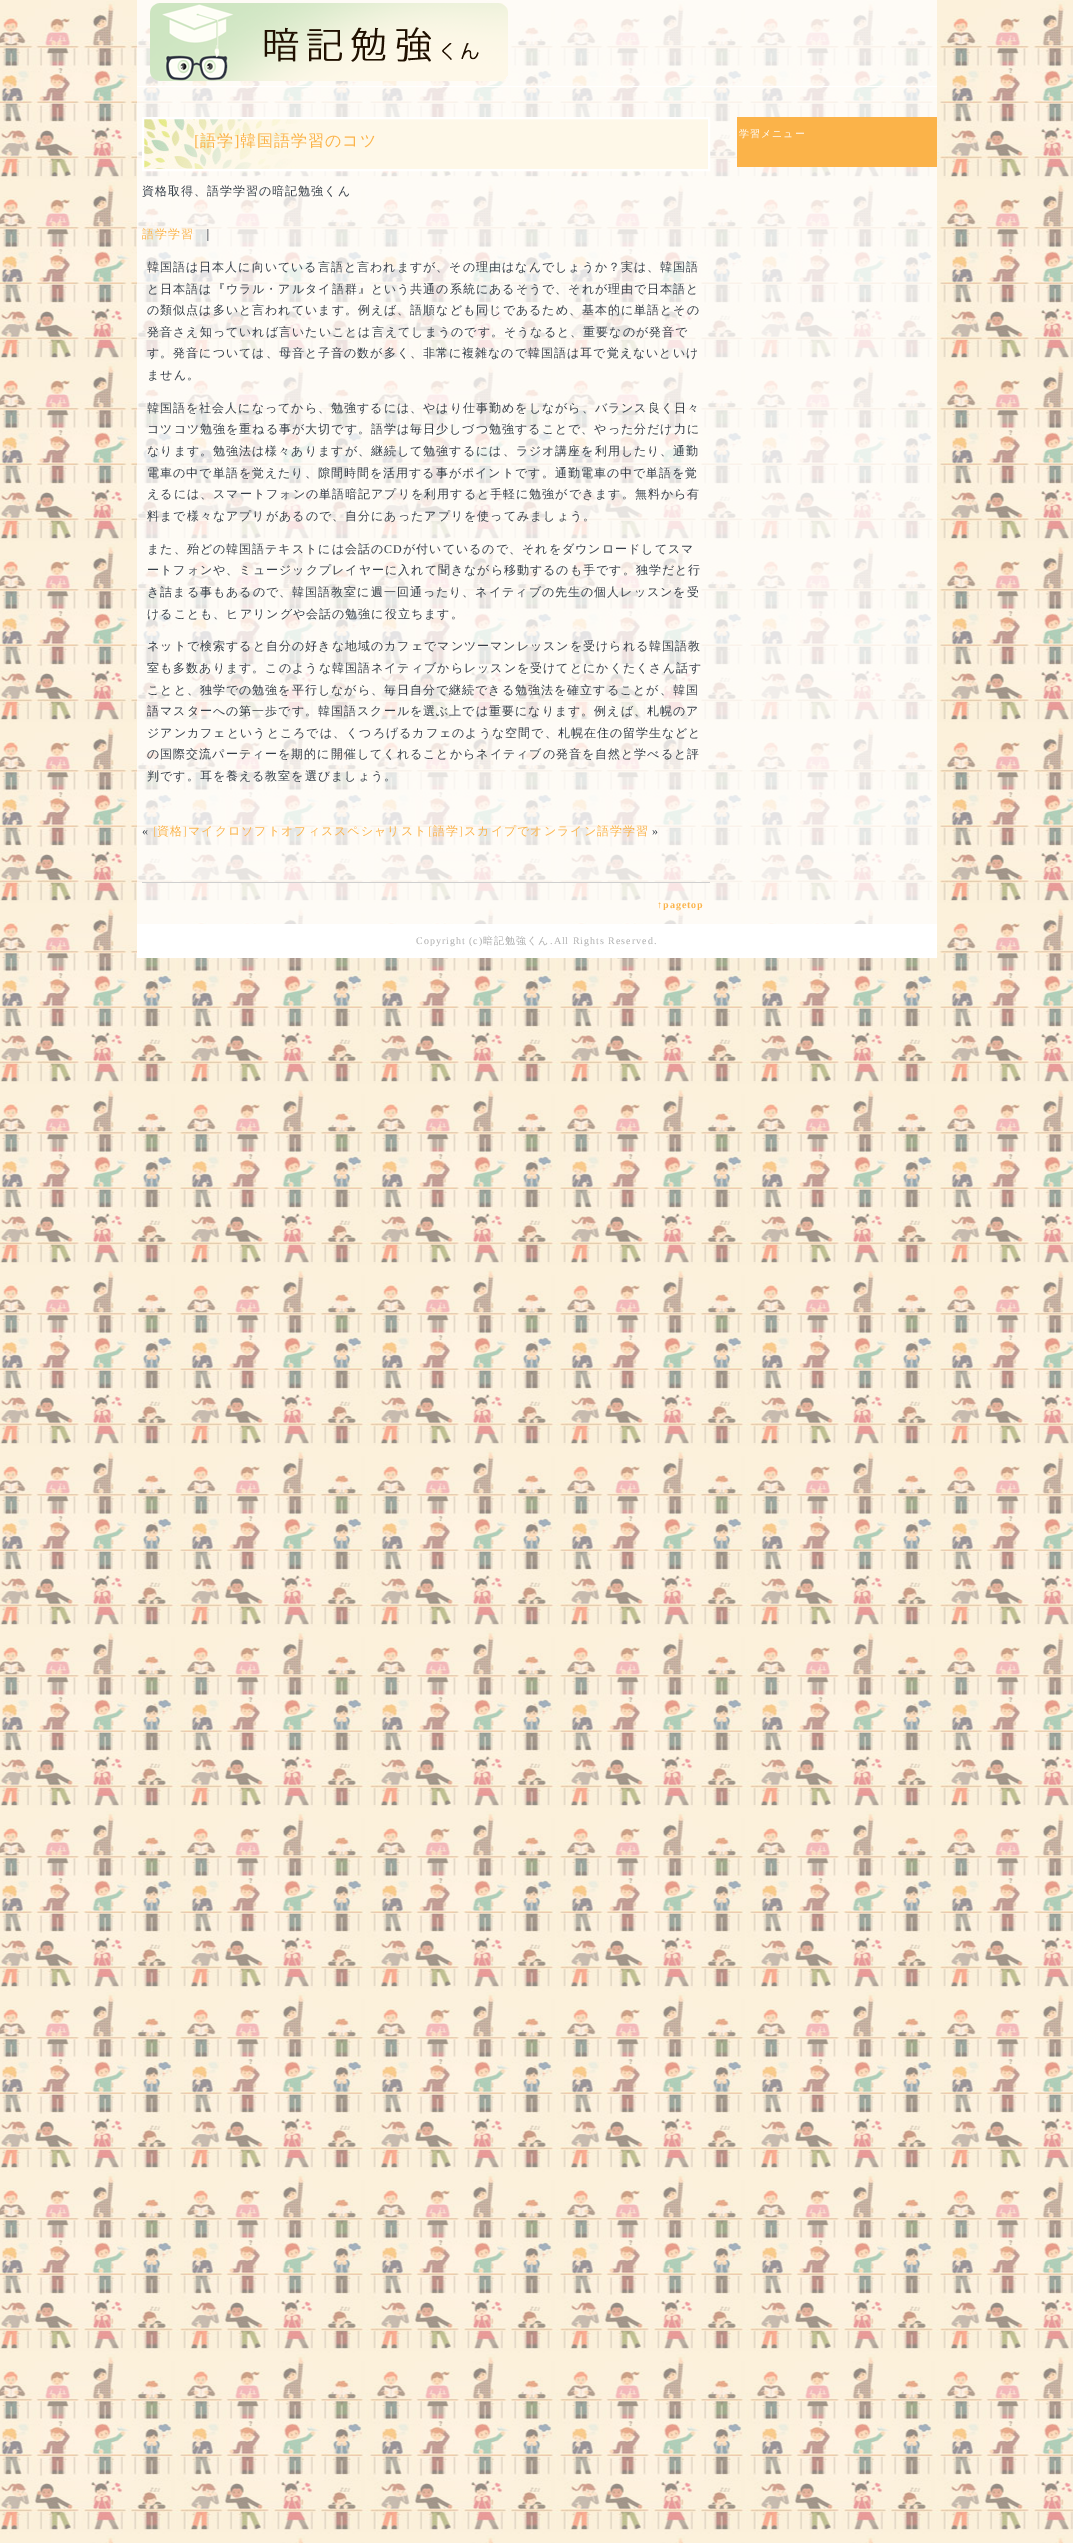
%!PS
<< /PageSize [1073 2543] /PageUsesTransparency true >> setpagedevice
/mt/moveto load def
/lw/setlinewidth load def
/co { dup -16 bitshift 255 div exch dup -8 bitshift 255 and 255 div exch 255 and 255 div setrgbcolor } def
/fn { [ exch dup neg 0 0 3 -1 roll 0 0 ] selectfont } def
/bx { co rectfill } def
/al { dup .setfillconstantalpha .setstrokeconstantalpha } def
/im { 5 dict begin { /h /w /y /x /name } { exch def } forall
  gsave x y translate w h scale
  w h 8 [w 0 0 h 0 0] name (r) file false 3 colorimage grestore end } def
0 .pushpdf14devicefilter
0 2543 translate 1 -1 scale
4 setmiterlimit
0 0 1073 2543 16#FFFFFF bx
(media/1.raw) 0 0 1073 2543 im
0.74 al
137 0 800 924 16#FFFFFF bx
1 al
(media/2.raw) 150 3 358 78 im
137 86 800 1 16#FFFFFF bx
(media/3.raw) 144 119 564 50 im
2 lw
143 118 566 52 rectstroke
142 882 568 1 16#CFCFCF bx
737 117 200 50 16#FBB349 bx
137 924 800 34 16#FFFFFF bx
/LiberationSerif-Regular 16 fn
16#FBB349 co
194 146 mt 1 0 ([) ashow
/WenQuanYiZenHei-Medium 16 fn
200 146 mt 1 0 (語学) ashow
/LiberationSerif-Regular 16 fn
234 146 mt 1 0 (]) ashow
/WenQuanYiZenHei-Medium 16 fn
240 146 mt 1 0 (韓国語学習のコツ) ashow
/WenQuanYiZenHei-Medium 12 fn
16#353E48 co
142 195 mt 1 0 (資格取得、語学学習の暗記勉強くん) ashow
16#FBB349 co
142 238 mt 1 0 (語学学習) ashow
16#353E48 co
202 238 mt 1 0 (｜) ashow
147 271 mt 1 0 (韓国語は日本人に向いている言語と言われますが、その理由はなんでしょうか？実は、韓国語) ashow
147 293 mt 1 0 (と日本語は『ウラル・アルタイ語群』という共通の系統にあるそうで、それが理由で日本語と) ashow
147 314 mt 1 0 (の類似点は多いと言われています。例えば、語順なども同じであるため、基本的に単語とその) ashow
147 336 mt 1 0 (発音さえ知っていれば言いたいことは言えてしまうのです。そうなると、重要なのが発音で) ashow
147 357 mt 1 0 (す。発音については、母音と子音の数が多く、非常に複雑なので韓国語は耳で覚えないといけ) ashow
147 379 mt 1 0 (ません。) ashow
147 412 mt 1 0 (韓国語を社会人になってから、勉強するには、やはり仕事勤めをしながら、バランス良く日々) ashow
147 433 mt 1 0 (コツコツ勉強を重ねる事が大切です。語学は毎日少しづつ勉強することで、やった分だけ力に) ashow
147 455 mt 1 0 (なります。勉強法は様々ありますが、継続して勉強するには、ラジオ講座を利用したり、通勤) ashow
147 477 mt 1 0 (電車の中で単語を覚えたり、隙間時間を活用する事がポイントです。通勤電車の中で単語を覚) ashow
147 498 mt 1 0 (えるには、スマートフォンの単語暗記アプリを利用すると手軽に勉強ができます。無料から有) ashow
147 520 mt 1 0 (料まで様々なアプリがあるので、自分にあったアプリを使ってみましょう。) ashow
147 553 mt 1 0 (また、殆どの韓国語テキストには会話の) ashow
/LiberationSerif-Regular 12 fn
384 553 mt 1 0 (CD) ashow
/WenQuanYiZenHei-Medium 12 fn
403 553 mt 1 0 (が付いているので、それをダウンロードしてスマ) ashow
147 574 mt 1 0 (ートフォンや、ミュージックプレイヤーに入れて聞きながら移動するのも手です。独学だと行) ashow
147 596 mt 1 0 (き詰まる事もあるので、韓国語教室に週一回通ったり、ネイティブの先生の個人レッスンを受) ashow
147 618 mt 1 0 (けることも、ヒアリングや会話の勉強に役立ちます。) ashow
147 650 mt 1 0 (ネットで検索すると自分の好きな地域のカフェでマンツーマンレッスンを受けられる韓国語教) ashow
147 672 mt 1 0 (室も多数あります。このような韓国語ネイティブからレッスンを受けてとにかくたくさん話す) ashow
147 694 mt 1 0 (ことと、独学での勉強を平行しながら、毎日自分で継続できる勉強法を確立することが、韓国) ashow
147 715 mt 1 0 (語マスターへの第一歩です。韓国語スクールを選ぶ上では重要になります。例えば、札幌のア) ashow
147 737 mt 1 0 (ジアンカフェというところでは、くつろげるカフェのような空間で、札幌在住の留学生などと) ashow
147 758 mt 1 0 (の国際交流パーティーを期的に開催してくれることからネイティブの発音を自然と学べると評) ashow
147 780 mt 1 0 (判です。耳を養える教室を選びましょう。) ashow
/LiberationSerif-Regular 12 fn
142 835 mt 1 0 («) ashow
16#FBB349 co
153 835 mt 1 0 ([) ashow
/WenQuanYiZenHei-Medium 12 fn
157 835 mt 1 0 (資格) ashow
/LiberationSerif-Regular 12 fn
183 835 mt 1 0 (]) ashow
/WenQuanYiZenHei-Medium 12 fn
188 835 mt 1 0 (マイクロソフトオフィススペシャリスト) ashow
/LiberationSerif-Regular 12 fn
428 835 mt 1 0 ([) ashow
/WenQuanYiZenHei-Medium 12 fn
433 835 mt 1 0 (語学) ashow
/LiberationSerif-Regular 12 fn
459 835 mt 1 0 (]) ashow
/WenQuanYiZenHei-Medium 12 fn
464 835 mt 1 0 (スカイプでオンライン語学学習) ashow
/LiberationSerif-Regular 12 fn
16#353E48 co
652 835 mt 1 0 (») ashow
/LiberationSerif-Bold 10 fn
16#FBB349 co
657 908 mt 1 0 (↑pagetop) ashow
/WenQuanYiZenHei-Medium 10 fn
16#FFFFFF co
739 137 mt 1 0 (学習メニュー) ashow
/LiberationSerif-Regular 10 fn
16#ABABAB co
416 944 mt 1 0 (Copyright \(c\)) ashow
/WenQuanYiZenHei-Medium 10 fn
483 944 mt 1 0 (暗記勉強くん) ashow
/LiberationSerif-Regular 10 fn
550 944 mt 1 0 (.All Rights Reserved.) ashow
.poppdf14devicefilter showpage
